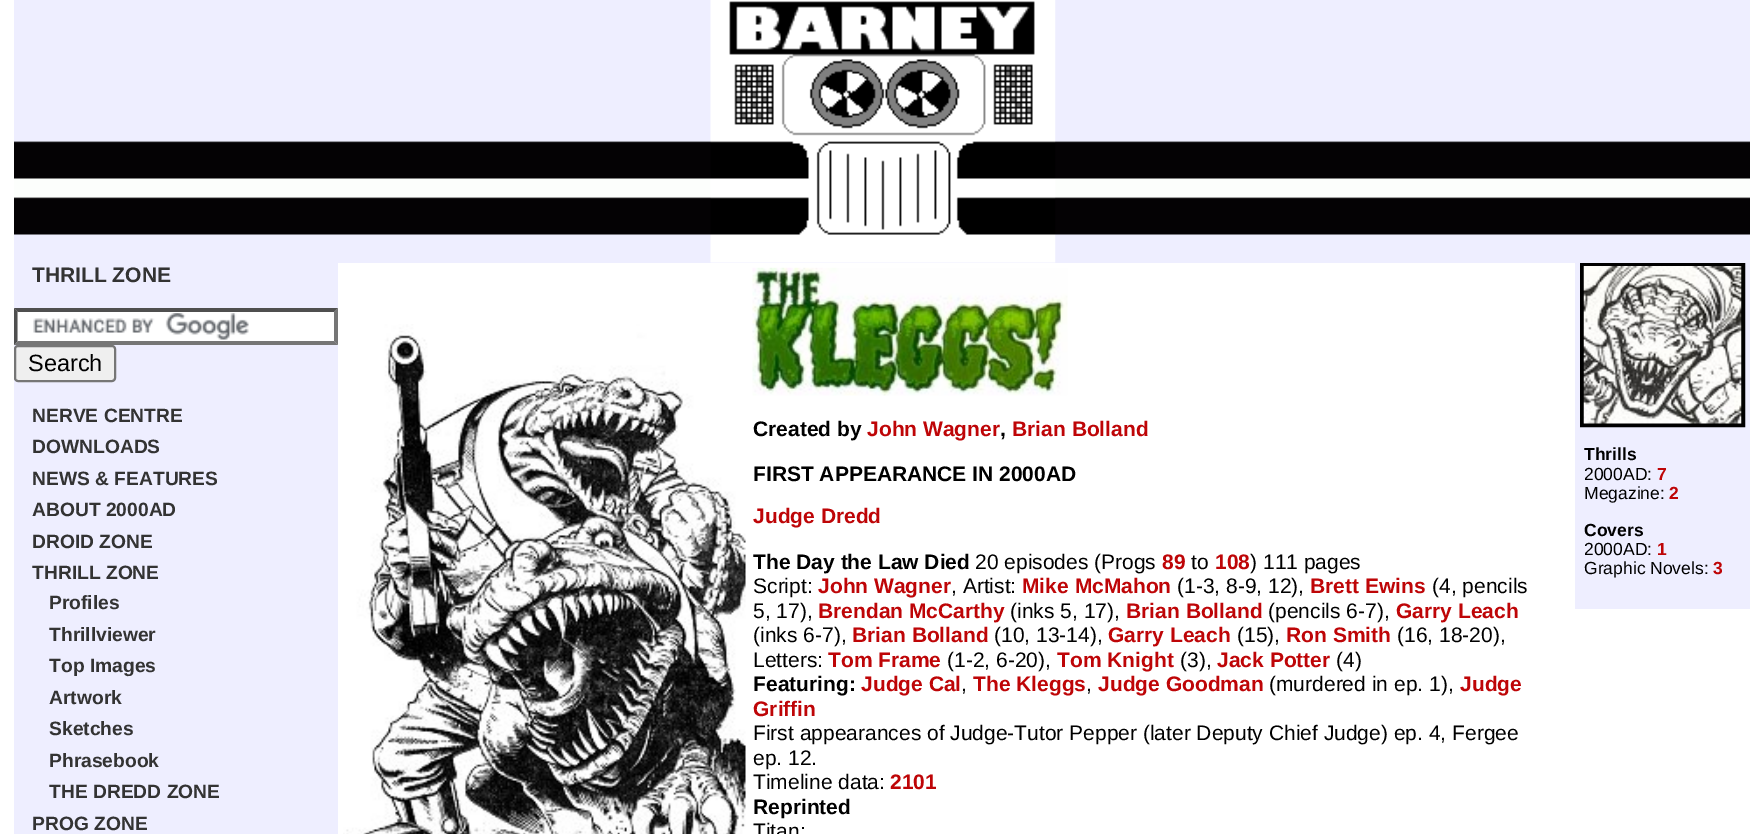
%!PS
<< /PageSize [1764 834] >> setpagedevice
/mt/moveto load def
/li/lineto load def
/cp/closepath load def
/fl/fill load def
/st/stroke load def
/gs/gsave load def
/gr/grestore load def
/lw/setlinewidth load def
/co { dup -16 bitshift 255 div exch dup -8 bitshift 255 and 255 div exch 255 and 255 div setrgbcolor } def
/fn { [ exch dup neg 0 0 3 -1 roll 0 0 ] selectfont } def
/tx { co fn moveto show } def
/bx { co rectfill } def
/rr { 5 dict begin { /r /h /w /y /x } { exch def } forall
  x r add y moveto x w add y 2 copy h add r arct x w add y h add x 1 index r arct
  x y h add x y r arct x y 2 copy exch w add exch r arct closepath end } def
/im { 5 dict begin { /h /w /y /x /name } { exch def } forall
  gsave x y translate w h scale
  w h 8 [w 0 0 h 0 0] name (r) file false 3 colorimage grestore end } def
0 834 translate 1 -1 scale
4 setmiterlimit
0 0 1764 834 16#FFFFFF bx
14 0 1736 263 16#EEEEFF bx
(media/1.raw) 14 141 1736 94 im
(media/2.raw) 710 0 346 263 im
14 263 324 571 16#EEEEFF bx
14 308 324 37 16#FFFFFF bx
(media/3.raw) 33 313 216 27 im
16#4F4F4F co
14 308 mt 338 308 li 334 312 li 18 312 li cp fl
16#767676 co
338 308 mt 338 345 li 334 341 li 334 311.5 li cp fl
338 345 mt 14 345 li 18 341 li 334 341 li cp fl
16#4F4F4F co
14 345 mt 14 308 li 17.5 311.5 li 17.5 341 li cp fl
16#EFEFEF co
15 346 100 35 3 rr gs fl gr
16#767676 co
2 lw
st
(media/4.raw) 343 324 403 510 im
(media/5.raw) 752 267 316 129 im
1575 263 175 346 16#EEEEFF bx
16#000000 co
4 lw
1582 265 161 160 rectstroke
(media/6.raw) 1583 266 159 158 im
(THRILL ZONE) 32 282 /LiberationSans-Bold 21 16#333333 tx
(Search) 28 371 /LiberationSans-Regular 23.5 16#000000 tx
(NERVE CENTRE) 32 422 /LiberationSans-Bold 19.25 16#333333 tx
(DOWNLOADS) 32 453 /LiberationSans-Bold 19.25 16#333333 tx
(NEWS & FEATURES) 32 485 /LiberationSans-Bold 19.25 16#333333 tx
(ABOUT 2000AD) 32 516 /LiberationSans-Bold 19.25 16#333333 tx
(DROID ZONE) 32 548 /LiberationSans-Bold 19.25 16#333333 tx
(THRILL ZONE) 32 579 /LiberationSans-Bold 19.25 16#333333 tx
(Profiles) 49 609 /LiberationSans-Bold 19.25 16#333333 tx
(Thrillviewer) 49 641 /LiberationSans-Bold 19.25 16#333333 tx
(Top Images) 49 672 /LiberationSans-Bold 19.25 16#333333 tx
(Artwork) 49 704 /LiberationSans-Bold 19.25 16#333333 tx
(Sketches) 49 735 /LiberationSans-Bold 19.25 16#333333 tx
(Phrasebook) 49 767 /LiberationSans-Bold 19.25 16#333333 tx
(THE DREDD ZONE) 49 798 /LiberationSans-Bold 19.25 16#333333 tx
(PROG ZONE) 32 830 /LiberationSans-Bold 19.25 16#333333 tx
(Created by) 753 436 /LiberationSans-Bold 21 16#000000 tx
(John Wagner) 867 436 /LiberationSans-Bold 21 16#BE0507 tx
(,) 1000 436 /LiberationSans-Bold 21 16#000000 tx
(Brian Bolland) 1012 436 /LiberationSans-Bold 21 16#BE0507 tx
(FIRST APPEARANCE IN 2000AD) 753 481 /LiberationSans-Bold 21 16#000000 tx
(Judge Dredd) 753 523 /LiberationSans-Bold 21 16#BE0507 tx
(The Day the Law Died) 753 569 /LiberationSans-Bold 21 16#000000 tx
(20 episodes \(Progs) 975 569 /LiberationSans-Regular 21 16#000000 tx
(89) 1162 569 /LiberationSans-Bold 21 16#BE0507 tx
(to) 1191 569 /LiberationSans-Regular 21 16#000000 tx
(108) 1215 569 /LiberationSans-Bold 21 16#BE0507 tx
(\) 111 pages) 1250 569 /LiberationSans-Regular 21 16#000000 tx
(Script:) 753 593 /LiberationSans-Regular 21 16#000000 tx
(John Wagner) 818 593 /LiberationSans-Bold 21 16#BE0507 tx
(, Artist:) 951 593 /LiberationSans-Regular 21 16#000000 tx
(Mike McMahon) 1022 593 /LiberationSans-Bold 21 16#BE0507 tx
(\(1-3, 8-9, 12\),) 1177 593 /LiberationSans-Regular 21 16#000000 tx
(Brett Ewins) 1310 593 /LiberationSans-Bold 21 16#BE0507 tx
(\(4, pencils) 1432 593 /LiberationSans-Regular 21 16#000000 tx
(5, 17\),) 753 618 /LiberationSans-Regular 21 16#000000 tx
(Brendan McCarthy) 818 618 /LiberationSans-Bold 21 16#BE0507 tx
(\(inks 5, 17\),) 1010 618 /LiberationSans-Regular 21 16#000000 tx
(Brian Bolland) 1126 618 /LiberationSans-Bold 21 16#BE0507 tx
(\(pencils 6-7\),) 1268 618 /LiberationSans-Regular 21 16#000000 tx
(Garry Leach) 1396 618 /LiberationSans-Bold 21 16#BE0507 tx
(\(inks 6-7\),) 753 642 /LiberationSans-Regular 21 16#000000 tx
(Brian Bolland) 852 642 /LiberationSans-Bold 21 16#BE0507 tx
(\(10, 13-14\),) 994 642 /LiberationSans-Regular 21 16#000000 tx
(Garry Leach) 1108 642 /LiberationSans-Bold 21 16#BE0507 tx
(\(15\),) 1237 642 /LiberationSans-Regular 21 16#000000 tx
(Ron Smith) 1286 642 /LiberationSans-Bold 21 16#BE0507 tx
(\(16, 18-20\),) 1397 642 /LiberationSans-Regular 21 16#000000 tx
(Letters:) 753 667 /LiberationSans-Regular 21 16#000000 tx
(Tom Frame) 828 667 /LiberationSans-Bold 21 16#BE0507 tx
(\(1-2, 6-20\),) 947 667 /LiberationSans-Regular 21 16#000000 tx
(Tom Knight) 1057 667 /LiberationSans-Bold 21 16#BE0507 tx
(\(3\),) 1180 667 /LiberationSans-Regular 21 16#000000 tx
(Jack Potter) 1217 667 /LiberationSans-Bold 21 16#BE0507 tx
(\(4\)) 1336 667 /LiberationSans-Regular 21 16#000000 tx
(Featuring:) 753 691 /LiberationSans-Bold 21 16#000000 tx
(Judge Cal) 861 691 /LiberationSans-Bold 21 16#BE0507 tx
(,) 961 691 /LiberationSans-Regular 21 16#000000 tx
(The Kleggs) 973 691 /LiberationSans-Bold 21 16#BE0507 tx
(,) 1086 691 /LiberationSans-Regular 21 16#000000 tx
(Judge Goodman) 1098 691 /LiberationSans-Bold 21 16#BE0507 tx
(\(murdered in ep. 1\),) 1269 691 /LiberationSans-Regular 21 16#000000 tx
(Judge) 1460 691 /LiberationSans-Bold 21 16#BE0507 tx
(Griffin) 753 716 /LiberationSans-Bold 21 16#BE0507 tx
(First appearances of Judge-Tutor Pepper \(later Deputy Chief Judge\) ep. 4, Fergee) 753 740 /LiberationSans-Regular 21 16#000000 tx
(ep. 12.) 753 765 /LiberationSans-Regular 21 16#000000 tx
(Timeline data:) 753 789 /LiberationSans-Regular 21 16#000000 tx
(2101) 890 789 /LiberationSans-Bold 21 16#BE0507 tx
(Reprinted) 753 814 /LiberationSans-Bold 21 16#000000 tx
(Titan:) 753 838 /LiberationSans-Regular 21 16#000000 tx
(Thrills) 1584 460 /LiberationSans-Bold 17.5 16#000000 tx
(2000AD:) 1584 480 /LiberationSans-Regular 17.5 16#000000 tx
(7) 1657 480 /LiberationSans-Bold 17.5 16#BE0507 tx
(Megazine:) 1584 499 /LiberationSans-Regular 17.5 16#000000 tx
(2) 1669 499 /LiberationSans-Bold 17.5 16#BE0507 tx
(Covers) 1584 536 /LiberationSans-Bold 17.5 16#000000 tx
(2000AD:) 1584 555 /LiberationSans-Regular 17.5 16#000000 tx
(1) 1657 555 /LiberationSans-Bold 17.5 16#BE0507 tx
(Graphic Novels:) 1584 574 /LiberationSans-Regular 17.5 16#000000 tx
(3) 1713 574 /LiberationSans-Bold 17.5 16#BE0507 tx
showpage
